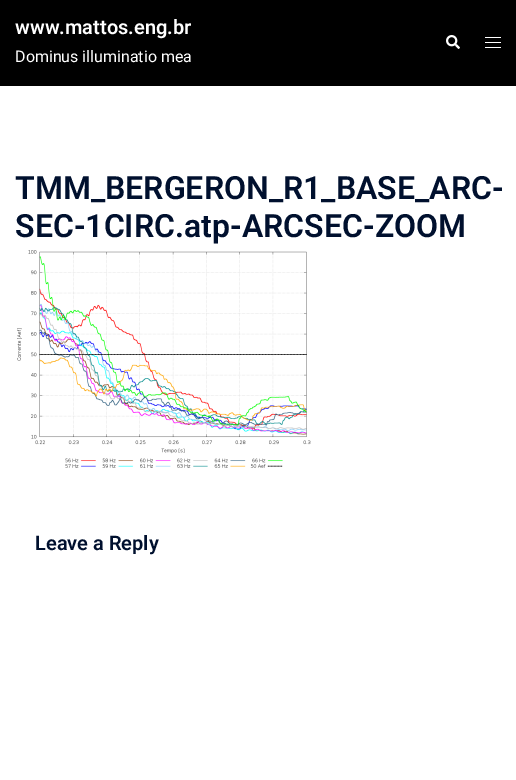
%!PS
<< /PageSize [516 780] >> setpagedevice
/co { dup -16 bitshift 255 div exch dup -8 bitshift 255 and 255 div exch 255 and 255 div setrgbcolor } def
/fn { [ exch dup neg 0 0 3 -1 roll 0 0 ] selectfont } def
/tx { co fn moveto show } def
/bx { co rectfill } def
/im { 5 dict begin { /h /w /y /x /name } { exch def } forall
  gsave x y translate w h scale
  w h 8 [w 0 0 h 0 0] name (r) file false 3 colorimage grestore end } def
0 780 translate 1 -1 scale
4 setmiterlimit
0 0 516 780 16#FFFFFF bx
0 0 516 86 16#000000 bx
(media/1.raw) 446 35 14 14 im
485 37 16 1 16#FFFFFF bx
485 42 16 1 16#FFFFFF bx
485 47 16 1 16#FFFFFF bx
(media/2.raw) 17 250 294 218 im
(www.mattos.eng.br) 15 34 /Roboto-SemiBold 20 16#FFFFFF tx
(Dominus illuminatio mea) 15 62 /Roboto-Regular 16 16#FFFFFF tx
(TMM_BERGERON_R1_BASE_ARC-) 15 199 /Roboto-SemiBold 32 16#00102E tx
(SEC-1CIRC.atp-ARCSEC-ZOOM) 15 237 /Roboto-SemiBold 32 16#00102E tx
(Leave a Reply) 35 550 /Roboto-SemiBold 20 16#00102E tx
showpage
